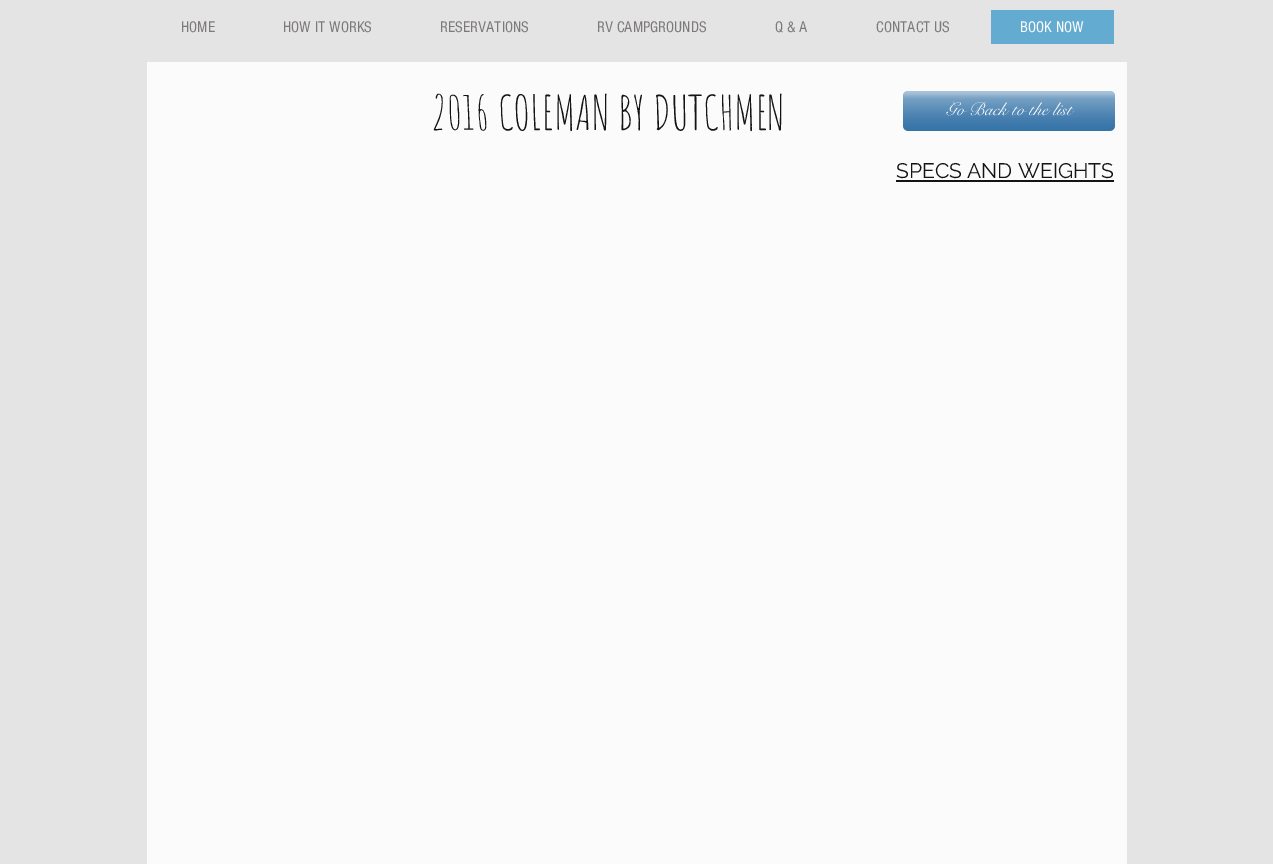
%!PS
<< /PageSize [1273 864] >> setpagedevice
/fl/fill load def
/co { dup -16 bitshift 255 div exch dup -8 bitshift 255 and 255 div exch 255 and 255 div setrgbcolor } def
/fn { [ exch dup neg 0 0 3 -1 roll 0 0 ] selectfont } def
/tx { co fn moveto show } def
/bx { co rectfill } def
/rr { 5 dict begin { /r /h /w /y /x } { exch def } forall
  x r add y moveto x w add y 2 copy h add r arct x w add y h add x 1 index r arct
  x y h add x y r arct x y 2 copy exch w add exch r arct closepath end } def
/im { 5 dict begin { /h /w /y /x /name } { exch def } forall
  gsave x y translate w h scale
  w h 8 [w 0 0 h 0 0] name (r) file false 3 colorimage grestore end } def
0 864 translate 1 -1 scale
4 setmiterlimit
0 0 1273 864 16#E4E4E4 bx
991 10 123 34 16#63ABD0 bx
147 62 980 802 16#FBFBFB bx
16#2B6CA3 co
903 91 212 40 5 rr fl
(media/1.raw) 903 91 212 40 im
896 180 218 2 16#141414 bx
(HOME) 181 32 /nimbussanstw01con-Regular 16 16#7D7979 tx
(HOW IT WORKS) 283 32 /nimbussanstw01con-Regular 16 16#7D7979 tx
(RESERVATIONS) 440 32 /nimbussanstw01con-Regular 16 16#7D7979 tx
(RV CAMPGROUNDS) 597 32 /nimbussanstw01con-Regular 16 16#7D7979 tx
(Q & A) 775 32 /nimbussanstw01con-Regular 16 16#7D7979 tx
(CONTACT US) 876 32 /nimbussanstw01con-Regular 16 16#7D7979 tx
(BOOK NOW) 1020 32 /nimbussanstw01con-Regular 16 16#FFFFFF tx
(2016 COLEMAN BY DUTCHMEN) 431 130 /AmaticSC-Regular 47 16#141414 tx
(Go Back to the list) 946 115 /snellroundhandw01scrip-Regular 18 16#FFFFFF tx
(SPECS AND WEIGHTS) 896 178 /Raleway-Regular 21 16#141414 tx
showpage
